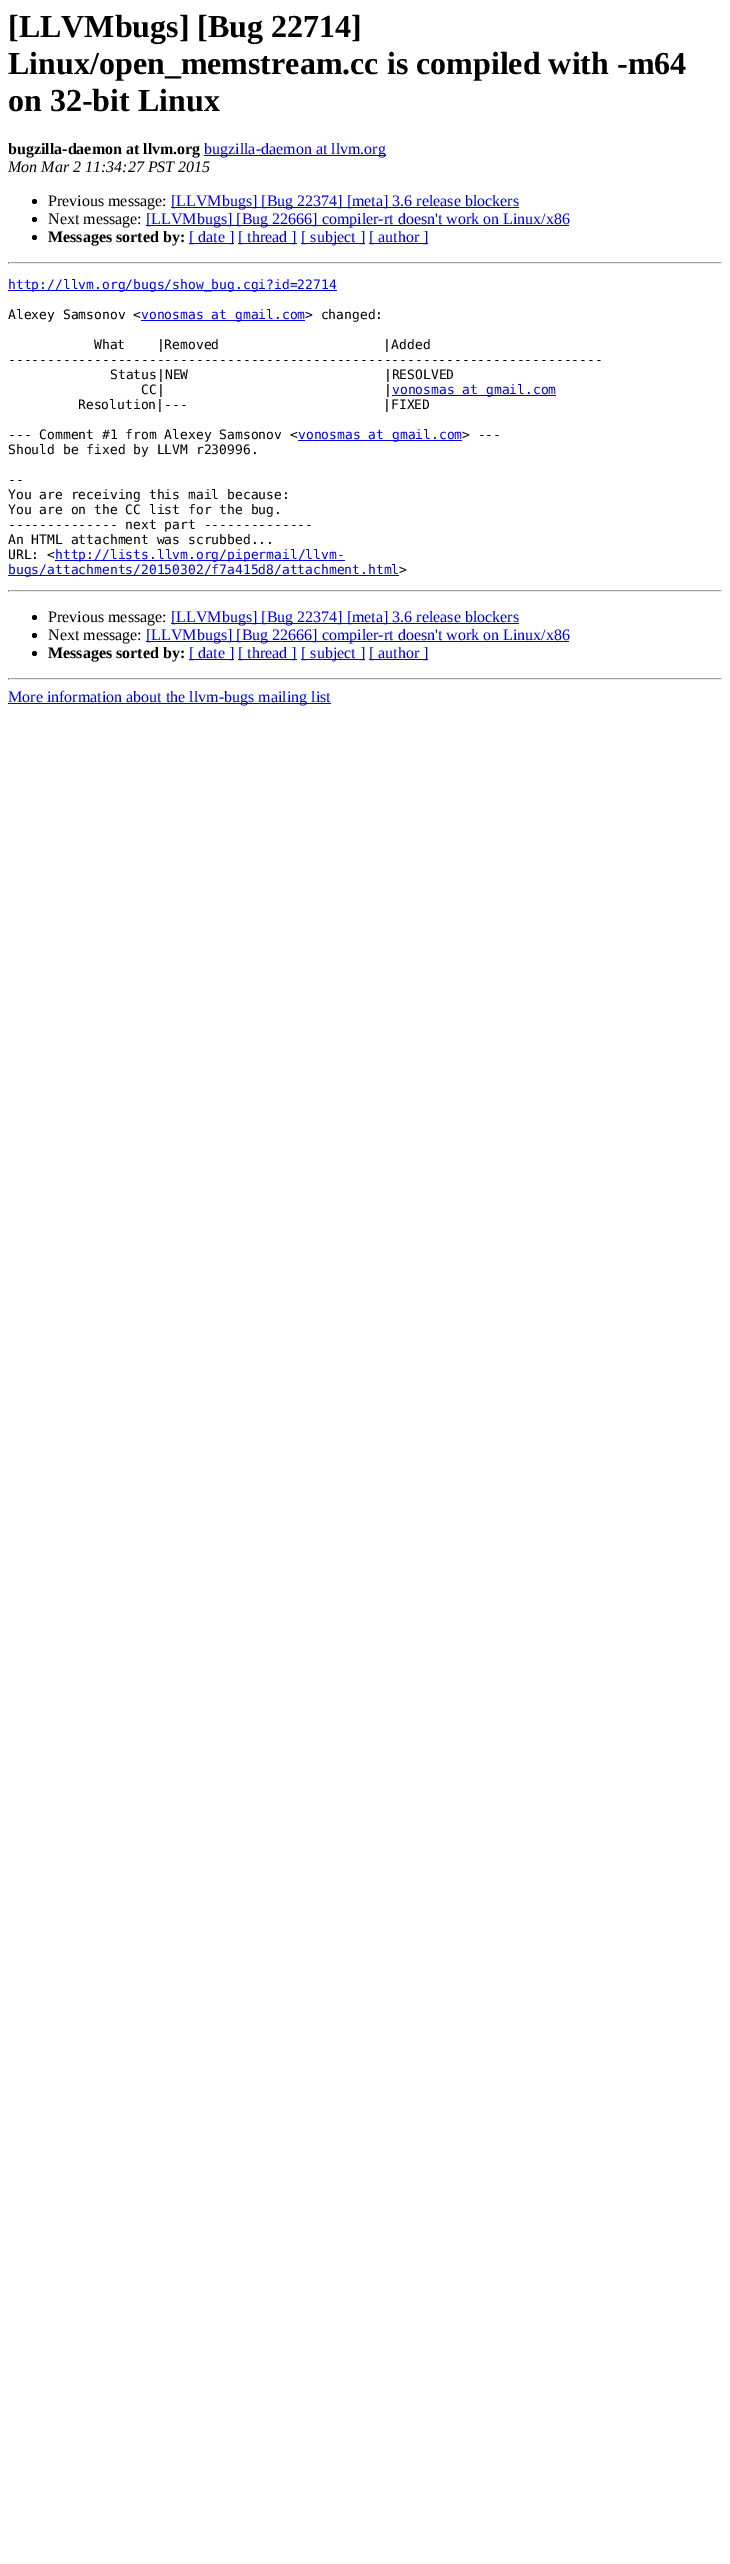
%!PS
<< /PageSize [730 2564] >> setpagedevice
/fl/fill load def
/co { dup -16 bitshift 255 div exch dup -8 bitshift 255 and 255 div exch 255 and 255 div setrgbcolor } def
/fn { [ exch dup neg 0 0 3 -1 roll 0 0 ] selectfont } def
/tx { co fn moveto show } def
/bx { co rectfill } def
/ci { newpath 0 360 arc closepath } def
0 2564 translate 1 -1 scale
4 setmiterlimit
0 0 730 2564 16#FFFFFF bx
204 155 182 1 16#0000EE bx
16#000000 co
34.5 201.5 2.5 ci fl
171 207 348 1 16#0000EE bx
16#000000 co
34.5 219.5 2.5 ci fl
146 225 423 1 16#0000EE bx
16#000000 co
34.5 237.5 2.5 ci fl
189 243 45 1 16#0000EE bx
238 243 59 1 16#0000EE bx
301 243 64 1 16#0000EE bx
369 243 59 1 16#0000EE bx
8 262 714 1 16#9F9F9F bx
721 262 1 2 16#EEEEEE bx
8 263 714 1 16#EEEEEE bx
8 262 1 2 16#9F9F9F bx
8 290 329 1 16#0000EE bx
141 320 164 1 16#0000EE bx
392 395 164 1 16#0000EE bx
298 440 164 1 16#0000EE bx
55 560 290 1 16#0000EE bx
8 575 391 1 16#0000EE bx
8 590 714 1 16#9F9F9F bx
721 590 1 2 16#EEEEEE bx
8 591 714 1 16#EEEEEE bx
8 590 1 2 16#9F9F9F bx
16#000000 co
34.5 617.5 2.5 ci fl
171 623 348 1 16#0000EE bx
16#000000 co
34.5 635.5 2.5 ci fl
146 641 423 1 16#0000EE bx
16#000000 co
34.5 653.5 2.5 ci fl
189 659 45 1 16#0000EE bx
238 659 59 1 16#0000EE bx
301 659 64 1 16#0000EE bx
369 659 59 1 16#0000EE bx
8 678 714 1 16#9F9F9F bx
721 678 1 2 16#EEEEEE bx
8 679 714 1 16#EEEEEE bx
8 678 1 2 16#9F9F9F bx
8 703 323 1 16#0000EE bx
([LLVMbugs] [Bug 22714]) 8 37 /LiberationSerif-Bold 32 16#000000 tx
(Linux/open_memstream.cc is compiled with -m64) 8 74 /LiberationSerif-Bold 32 16#000000 tx
(on 32-bit Linux) 8 111 /LiberationSerif-Bold 32 16#000000 tx
(bugzilla-daemon at llvm.org) 8 154 /LiberationSerif-Bold 16 16#000000 tx
(bugzilla-daemon at llvm.org) 204 154 /LiberationSerif-Regular 16 16#0000EE tx
(Mon Mar 2 11:34:27 PST 2015) 8 172 /LiberationSerif-Italic 16 16#000000 tx
(Previous message:) 48 206 /LiberationSerif-Regular 16 16#000000 tx
([LLVMbugs] [Bug 22374] [meta] 3.6 release blockers) 171 206 /LiberationSerif-Regular 16 16#0000EE tx
(Next message:) 48 224 /LiberationSerif-Regular 16 16#000000 tx
([LLVMbugs] [Bug 22666] compiler-rt doesn't work on Linux/x86) 146 224 /LiberationSerif-Regular 16 16#0000EE tx
(Messages sorted by:) 48 242 /LiberationSerif-Bold 16 16#000000 tx
([ date ]) 189 242 /LiberationSerif-Regular 16 16#0000EE tx
([ thread ]) 238 242 /LiberationSerif-Regular 16 16#0000EE tx
([ subject ]) 301 242 /LiberationSerif-Regular 16 16#0000EE tx
([ author ]) 369 242 /LiberationSerif-Regular 16 16#0000EE tx
(http://llvm.org/bugs/show_bug.cgi?id=22714) 8 289 /DejaVuSansMono-Regular 13 16#0000EE tx
(Alexey Samsonov <) 8 319 /DejaVuSansMono-Regular 13 16#000000 tx
(vonosmas at gmail.com) 141 319 /DejaVuSansMono-Regular 13 16#0000EE tx
(> changed:) 305 319 /DejaVuSansMono-Regular 13 16#000000 tx
(What    |Removed                     |Added) 94 349 /DejaVuSansMono-Regular 13 16#000000 tx
(----------------------------------------------------------------------------) 8 364 /DejaVuSansMono-Regular 13 16#000000 tx
(Status|NEW                         |RESOLVED) 110 379 /DejaVuSansMono-Regular 13 16#000000 tx
(CC|                            |) 141 394 /DejaVuSansMono-Regular 13 16#000000 tx
(vonosmas at gmail.com) 392 394 /DejaVuSansMono-Regular 13 16#0000EE tx
(Resolution|---                         |FIXED) 78 409 /DejaVuSansMono-Regular 13 16#000000 tx
(--- Comment #1 from Alexey Samsonov <) 8 439 /DejaVuSansMono-Regular 13 16#000000 tx
(vonosmas at gmail.com) 298 439 /DejaVuSansMono-Regular 13 16#0000EE tx
(> ---) 462 439 /DejaVuSansMono-Regular 13 16#000000 tx
(Should be fixed by LLVM r230996.) 8 454 /DejaVuSansMono-Regular 13 16#000000 tx
(--) 8 484 /DejaVuSansMono-Regular 13 16#000000 tx
(You are receiving this mail because:) 8 499 /DejaVuSansMono-Regular 13 16#000000 tx
(You are on the CC list for the bug.) 8 514 /DejaVuSansMono-Regular 13 16#000000 tx
(-------------- next part --------------) 8 529 /DejaVuSansMono-Regular 13 16#000000 tx
(An HTML attachment was scrubbed...) 8 544 /DejaVuSansMono-Regular 13 16#000000 tx
(URL: <) 8 559 /DejaVuSansMono-Regular 13 16#000000 tx
(http://lists.llvm.org/pipermail/llvm-) 55 559 /DejaVuSansMono-Regular 13 16#0000EE tx
(bugs/attachments/20150302/f7a415d8/attachment.html) 8 574 /DejaVuSansMono-Regular 13 16#0000EE tx
(>) 399 574 /DejaVuSansMono-Regular 13 16#000000 tx
(Previous message:) 48 622 /LiberationSerif-Regular 16 16#000000 tx
([LLVMbugs] [Bug 22374] [meta] 3.6 release blockers) 171 622 /LiberationSerif-Regular 16 16#0000EE tx
(Next message:) 48 640 /LiberationSerif-Regular 16 16#000000 tx
([LLVMbugs] [Bug 22666] compiler-rt doesn't work on Linux/x86) 146 640 /LiberationSerif-Regular 16 16#0000EE tx
(Messages sorted by:) 48 658 /LiberationSerif-Bold 16 16#000000 tx
([ date ]) 189 658 /LiberationSerif-Regular 16 16#0000EE tx
([ thread ]) 238 658 /LiberationSerif-Regular 16 16#0000EE tx
([ subject ]) 301 658 /LiberationSerif-Regular 16 16#0000EE tx
([ author ]) 369 658 /LiberationSerif-Regular 16 16#0000EE tx
(More information about the llvm-bugs mailing list) 8 702 /LiberationSerif-Regular 16 16#0000EE tx
showpage
